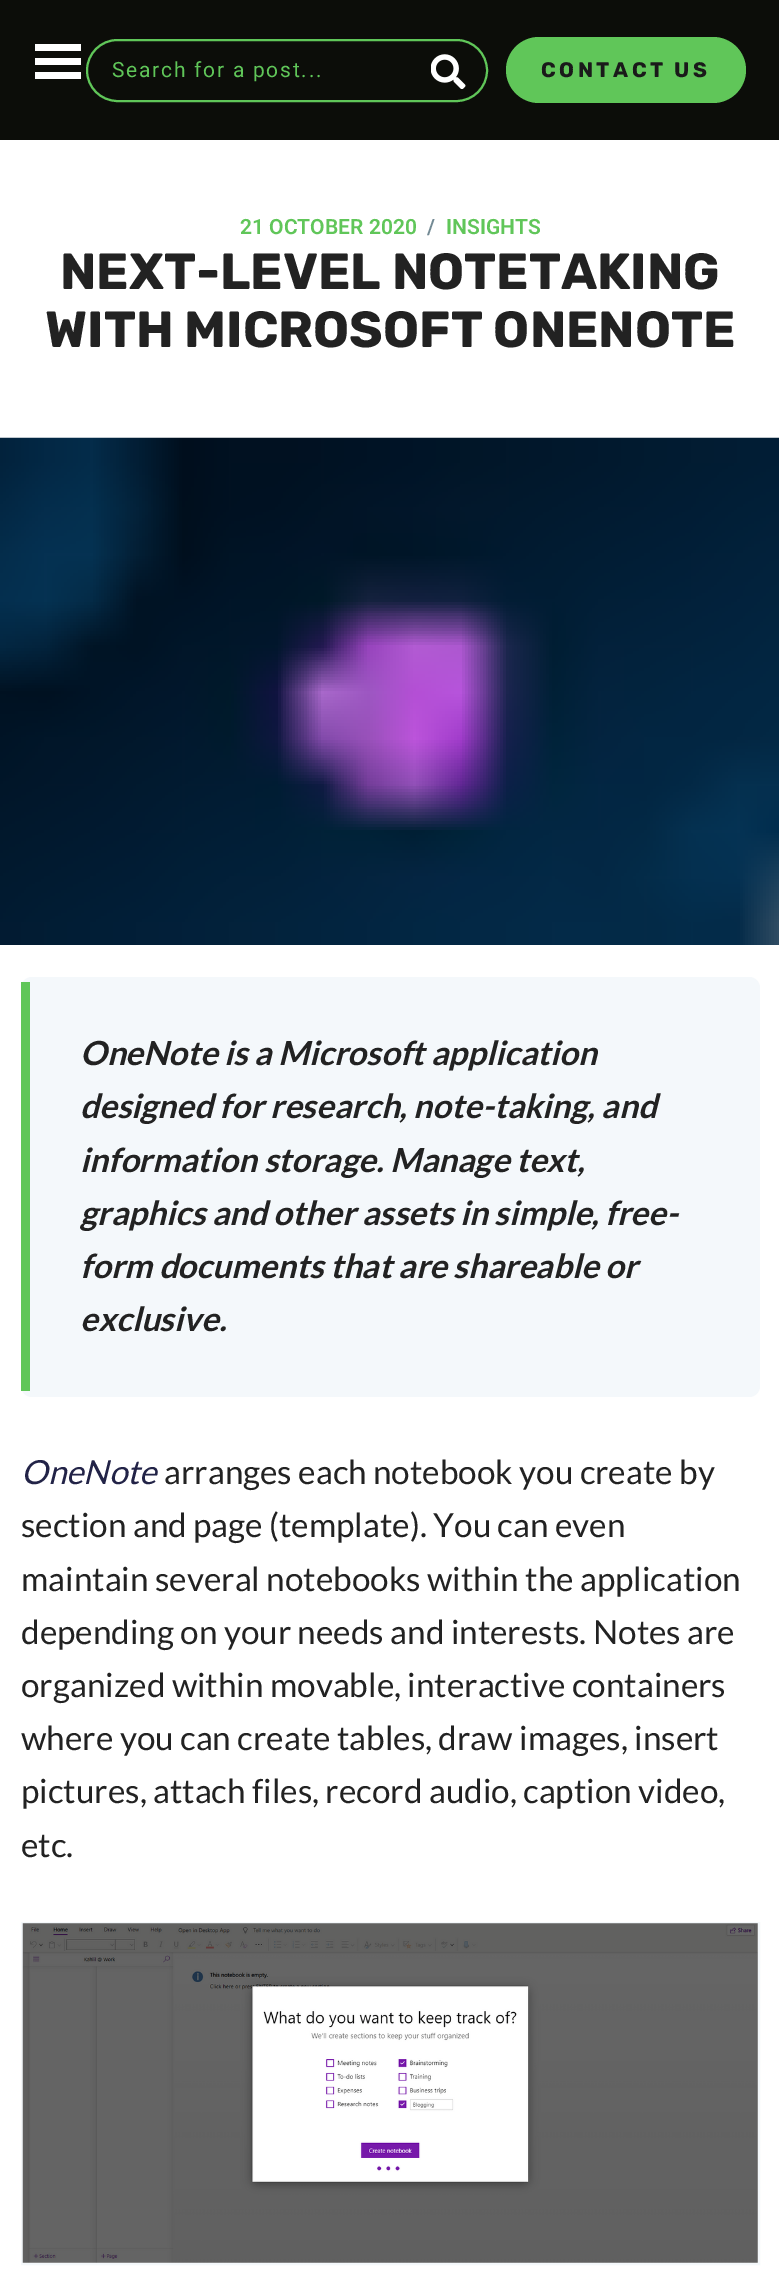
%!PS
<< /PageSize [779 2272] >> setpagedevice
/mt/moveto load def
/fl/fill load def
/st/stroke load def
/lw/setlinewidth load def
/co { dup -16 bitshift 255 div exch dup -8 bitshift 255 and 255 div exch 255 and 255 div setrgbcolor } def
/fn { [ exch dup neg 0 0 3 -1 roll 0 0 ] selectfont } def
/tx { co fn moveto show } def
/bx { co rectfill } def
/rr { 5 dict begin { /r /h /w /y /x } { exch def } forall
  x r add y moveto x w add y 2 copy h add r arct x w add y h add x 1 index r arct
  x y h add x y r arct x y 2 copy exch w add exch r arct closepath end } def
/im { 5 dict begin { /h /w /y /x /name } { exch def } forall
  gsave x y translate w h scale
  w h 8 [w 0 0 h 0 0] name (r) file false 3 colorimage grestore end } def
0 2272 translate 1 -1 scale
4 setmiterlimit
0 0 779 2272 16#FFFFFF bx
0 0 779 140 16#0C0D09 bx
35 44 46 7 16#FFFFFF bx
35 58 46 7 16#FFFFFF bx
35 72 46 7 16#FFFFFF bx
16#60C659 co
2 lw
87 40 400 61 30.5 rr st
(media/1.raw) 431 54 35 35 im
506 37 240 66 33 rr fl
(media/2.raw) 0 437 779 508 im
16#F4F8FB co
21 977 739 420 11 rr fl
21 982 9 409 16#60C659 bx
16#F4F8FB co
22 1923 737 341 rectstroke
(media/3.raw) 22 1923 736 340 im
/Roboto-Regular 21 fn
16#60C659 co
112 77 mt 1.75 0 (Search for a post...) ashow
/Rubik-Bold 21 fn
16#1A1A1A co
541 77 mt 3.5 0 (CONTACT US) ashow
(21 OCTOBER 2020) 240 234 /Roboto-SemiBold 21 16#60C659 tx
(/) 427 234 /Roboto-SemiBold 21 16#738A94 tx
(INSIGHTS) 446 234 /Roboto-SemiBold 21 16#60C659 tx
(NEXT-LEVEL NOTETAKING) 60 289 /Rubik-Bold 50.75 16#222222 tx
(WITH MICROSOFT ONENOTE) 45 347 /Rubik-Bold 50.75 16#222222 tx
(OneNote is a Microsoft application) 80 1065 /Lato-BoldItalic 33.25 16#222222 tx
(designed for research, note-taking, and) 80 1118 /Lato-BoldItalic 33.25 16#222222 tx
(information storage. Manage text,) 80 1172 /Lato-BoldItalic 33.25 16#222222 tx
(graphics and other assets in simple, free-) 80 1225 /Lato-BoldItalic 33.25 16#222222 tx
(form documents that are shareable or) 80 1278 /Lato-BoldItalic 33.25 16#222222 tx
(exclusive.) 80 1331 /Lato-BoldItalic 33.25 16#222222 tx
(OneNote) 21 1484 /Lato-Italic 33.25 16#222347 tx
(arranges each notebook you create by) 164 1484 /Lato-Regular 33.25 16#222222 tx
(section and page \(template\). You can even) 21 1537 /Lato-Regular 33.25 16#222222 tx
(maintain several notebooks within the application) 21 1591 /Lato-Regular 33.25 16#222222 tx
(depending on your needs and interests. Notes are) 21 1644 /Lato-Regular 33.25 16#222222 tx
(organized within movable, interactive containers) 21 1697 /Lato-Regular 33.25 16#222222 tx
(where you can create tables, draw images, insert) 21 1750 /Lato-Regular 33.25 16#222222 tx
(pictures, attach files, record audio, caption video,) 21 1803 /Lato-Regular 33.25 16#222222 tx
(etc.) 21 1857 /Lato-Regular 33.25 16#222222 tx
showpage
